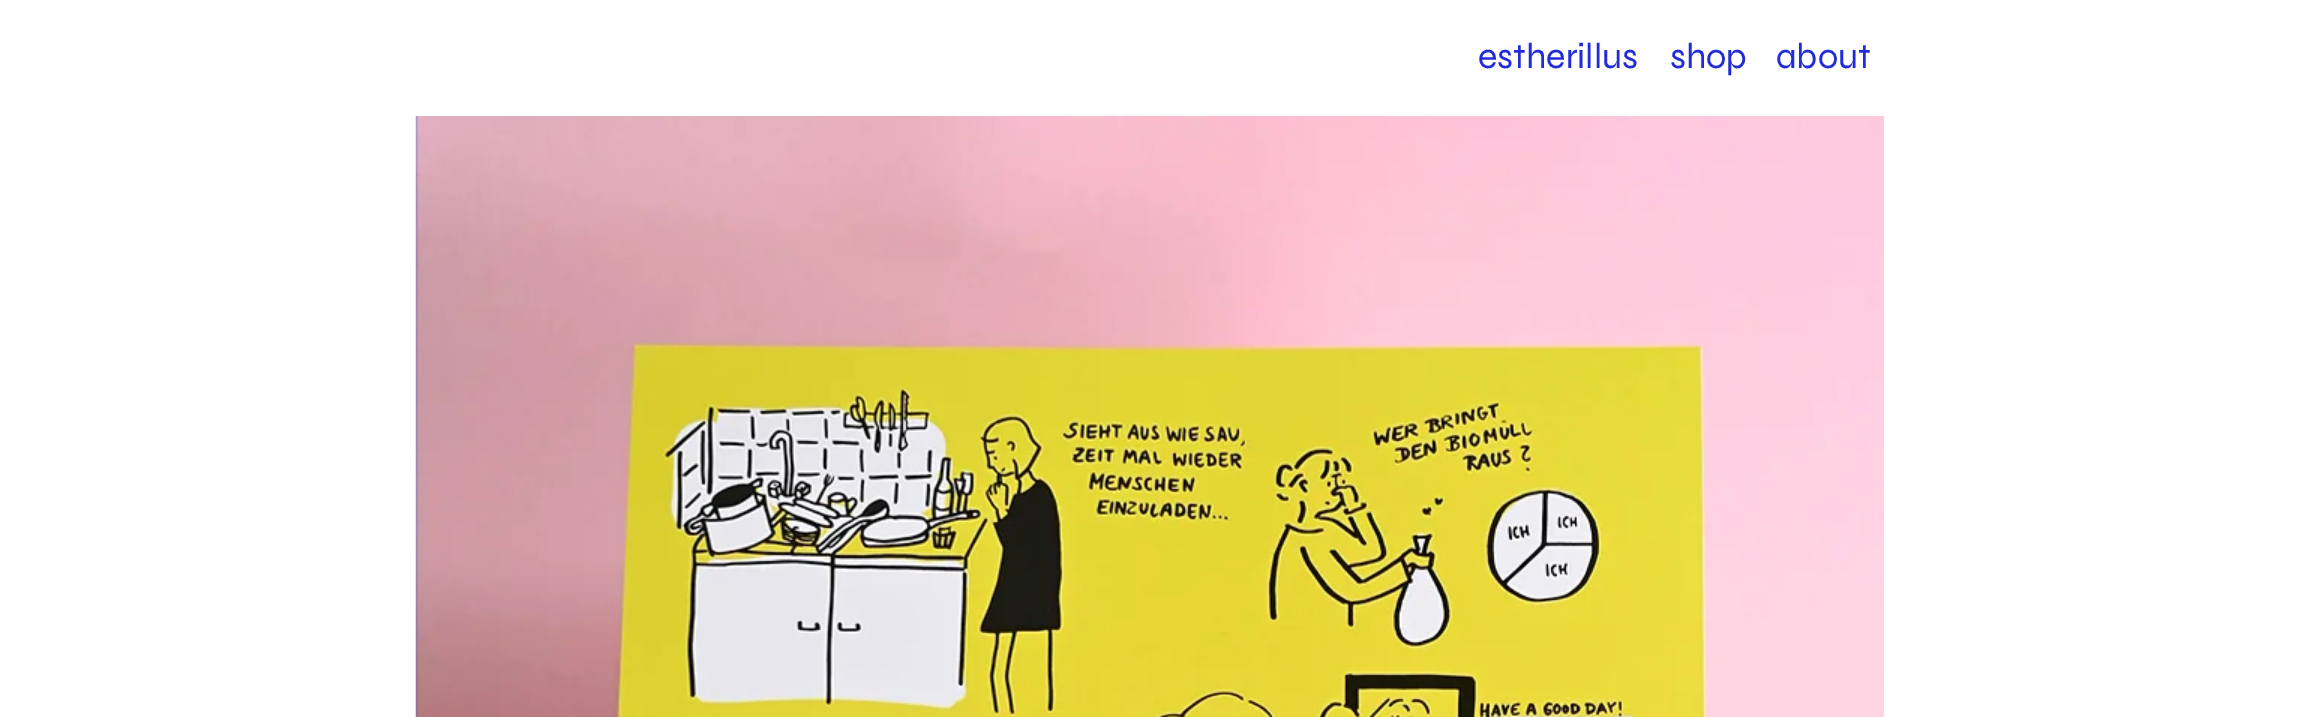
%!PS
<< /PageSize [2300 717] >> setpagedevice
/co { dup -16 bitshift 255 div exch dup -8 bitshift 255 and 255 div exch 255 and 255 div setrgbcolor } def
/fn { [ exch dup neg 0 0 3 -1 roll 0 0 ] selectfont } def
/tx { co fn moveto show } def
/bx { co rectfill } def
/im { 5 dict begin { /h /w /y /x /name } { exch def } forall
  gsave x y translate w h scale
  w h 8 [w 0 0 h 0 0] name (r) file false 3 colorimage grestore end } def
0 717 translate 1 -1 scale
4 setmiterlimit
0 0 2300 717 16#FFFFFF bx
(media/1.raw) 415 116 1469 601 im
(estherillus) 1478 68 /Syne-Regular 36 16#212BD8 tx
(shop) 1670 68 /Syne-Regular 36 16#212BD8 tx
(about) 1776 68 /Syne-Regular 36 16#212BD8 tx
showpage
